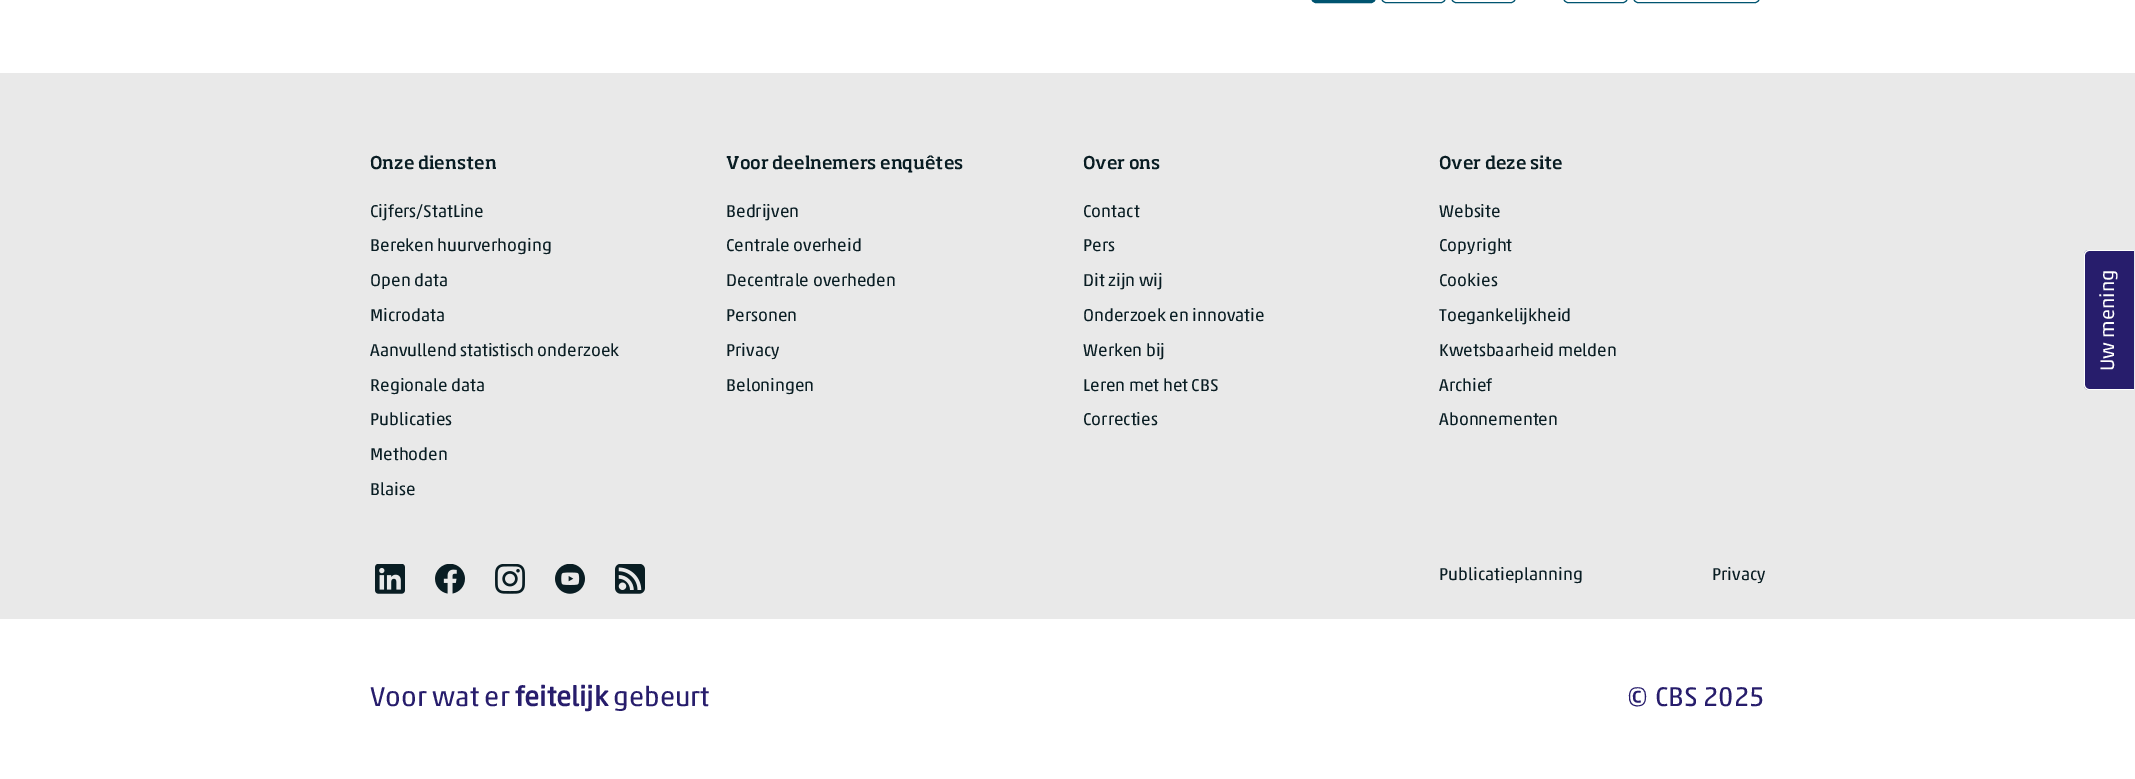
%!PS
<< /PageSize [2135 779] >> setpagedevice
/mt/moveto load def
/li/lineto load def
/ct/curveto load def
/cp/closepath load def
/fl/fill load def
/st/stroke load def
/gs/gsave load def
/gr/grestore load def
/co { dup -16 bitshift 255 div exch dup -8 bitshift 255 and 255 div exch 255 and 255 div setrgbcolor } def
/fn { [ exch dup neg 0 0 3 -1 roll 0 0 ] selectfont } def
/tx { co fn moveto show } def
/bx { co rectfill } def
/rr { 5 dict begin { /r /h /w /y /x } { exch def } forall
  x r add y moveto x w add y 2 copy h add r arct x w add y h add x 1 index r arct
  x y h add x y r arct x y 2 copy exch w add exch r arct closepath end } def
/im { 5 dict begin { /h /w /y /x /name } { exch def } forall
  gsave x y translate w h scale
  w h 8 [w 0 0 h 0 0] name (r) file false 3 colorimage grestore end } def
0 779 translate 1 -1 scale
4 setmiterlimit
0 0 2135 779 16#FFFFFF bx
16#005470 co
1311.5 -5.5 64 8 4.5 rr gs fl gr
st
1381.5 -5.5 64 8 4.5 rr st
1451.5 -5.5 64 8 4.5 rr st
1563.5 -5.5 64 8 4.5 rr st
1633.5 -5.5 126 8 4.5 rr st
0 73 2135 546 16#E9E9E9 bx
(media/1.raw) 375 564 30 30 im
(media/2.raw) 435 564 30 30 im
(media/3.raw) 495 564 30 30 im
(media/4.raw) 555 564 30 30 im
(media/5.raw) 615 564 30 30 im
16#271D6C co
2084 385 mt 2084 255 li 2084 252 2086 250 2089 250 ct 2134 250 li 2134 390 li 2089 390 li 2086 390 2084 388 2084 385 ct cp fl
16#FFFFFF co
2084 385 mt 2084 255 li 2084 252 2086 250 2089 250 ct 2134 250 li 2134 390 li 2089 390 li 2086 390 2084 388 2084 385 ct cp 2085 385 mt 2085 255 li 2085 253 2087 251 2089 251 ct 2134 251 li 2134 389 li 2089 389 li 2087 389 2085 387 2085 385 ct cp eofill
(Onze diensten) 370 169 /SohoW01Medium-Medium 17.4 16#091D23 tx
(Cijfers/StatLine) 370 217 /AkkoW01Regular-Regular 17.4 16#091D23 tx
(Bereken huurverhoging) 370 251 /AkkoW01Regular-Regular 17.4 16#091D23 tx
(Open data) 370 286 /AkkoW01Regular-Regular 17.4 16#091D23 tx
(Microdata) 370 321 /AkkoW01Regular-Regular 17.4 16#091D23 tx
(Aanvullend statistisch onderzoek) 370 356 /AkkoW01Regular-Regular 17.4 16#091D23 tx
(Regionale data) 370 391 /AkkoW01Regular-Regular 17.4 16#091D23 tx
(Publicaties) 370 425 /AkkoW01Regular-Regular 17.4 16#091D23 tx
(Methoden) 370 460 /AkkoW01Regular-Regular 17.4 16#091D23 tx
(Blaise) 370 495 /AkkoW01Regular-Regular 17.4 16#091D23 tx
(Voor deelnemers enquêtes) 726 169 /SohoW01Medium-Medium 17.4 16#091D23 tx
(Bedrijven) 726 217 /AkkoW01Regular-Regular 17.4 16#091D23 tx
(Centrale overheid) 726 251 /AkkoW01Regular-Regular 17.4 16#091D23 tx
(Decentrale overheden) 726 286 /AkkoW01Regular-Regular 17.4 16#091D23 tx
(Personen) 726 321 /AkkoW01Regular-Regular 17.4 16#091D23 tx
(Privacy) 726 356 /AkkoW01Regular-Regular 17.4 16#091D23 tx
(Beloningen) 726 391 /AkkoW01Regular-Regular 17.4 16#091D23 tx
(Over ons) 1083 169 /SohoW01Medium-Medium 17.4 16#091D23 tx
(Contact) 1083 217 /AkkoW01Regular-Regular 17.4 16#091D23 tx
(Pers) 1083 251 /AkkoW01Regular-Regular 17.4 16#091D23 tx
(Dit zijn wij) 1083 286 /AkkoW01Regular-Regular 17.4 16#091D23 tx
(Onderzoek en innovatie) 1083 321 /AkkoW01Regular-Regular 17.4 16#091D23 tx
(Werken bij) 1083 356 /AkkoW01Regular-Regular 17.4 16#091D23 tx
(Leren met het CBS) 1083 391 /AkkoW01Regular-Regular 17.4 16#091D23 tx
(Correcties) 1083 425 /AkkoW01Regular-Regular 17.4 16#091D23 tx
(Over deze site) 1439 169 /SohoW01Medium-Medium 17.4 16#091D23 tx
(Website) 1439 217 /AkkoW01Regular-Regular 17.4 16#091D23 tx
(Copyright) 1439 251 /AkkoW01Regular-Regular 17.4 16#091D23 tx
(Cookies) 1439 286 /AkkoW01Regular-Regular 17.4 16#091D23 tx
(Toegankelijkheid) 1439 321 /AkkoW01Regular-Regular 17.4 16#091D23 tx
(Kwetsbaarheid melden) 1439 356 /AkkoW01Regular-Regular 17.4 16#091D23 tx
(Archief) 1439 391 /AkkoW01Regular-Regular 17.4 16#091D23 tx
(Abonnementen) 1439 425 /AkkoW01Regular-Regular 17.4 16#091D23 tx
(Publicatieplanning) 1439 580 /AkkoW01Regular-Regular 17.4 16#091D23 tx
(Privacy) 1712 580 /AkkoW01Regular-Regular 17.4 16#091D23 tx
/AkkoW01Regular-Regular 20 fn
16#FFFFFF co
gs 2114 371 translate -90 rotate 0 0 mt (Uw mening) show gr
(Voor wat er) 370 706 /AkkoW01Regular-Regular 27.5 16#271D6C tx
(feitelijk) 515 706 /AkkoW01Regular-Bold 27.5 16#271D6C tx
(gebeurt) 613 706 /AkkoW01Regular-Regular 27.5 16#271D6C tx
(© CBS 2025) 1626 706 /AkkoW01Regular-Regular 27.5 16#271D6C tx
showpage
